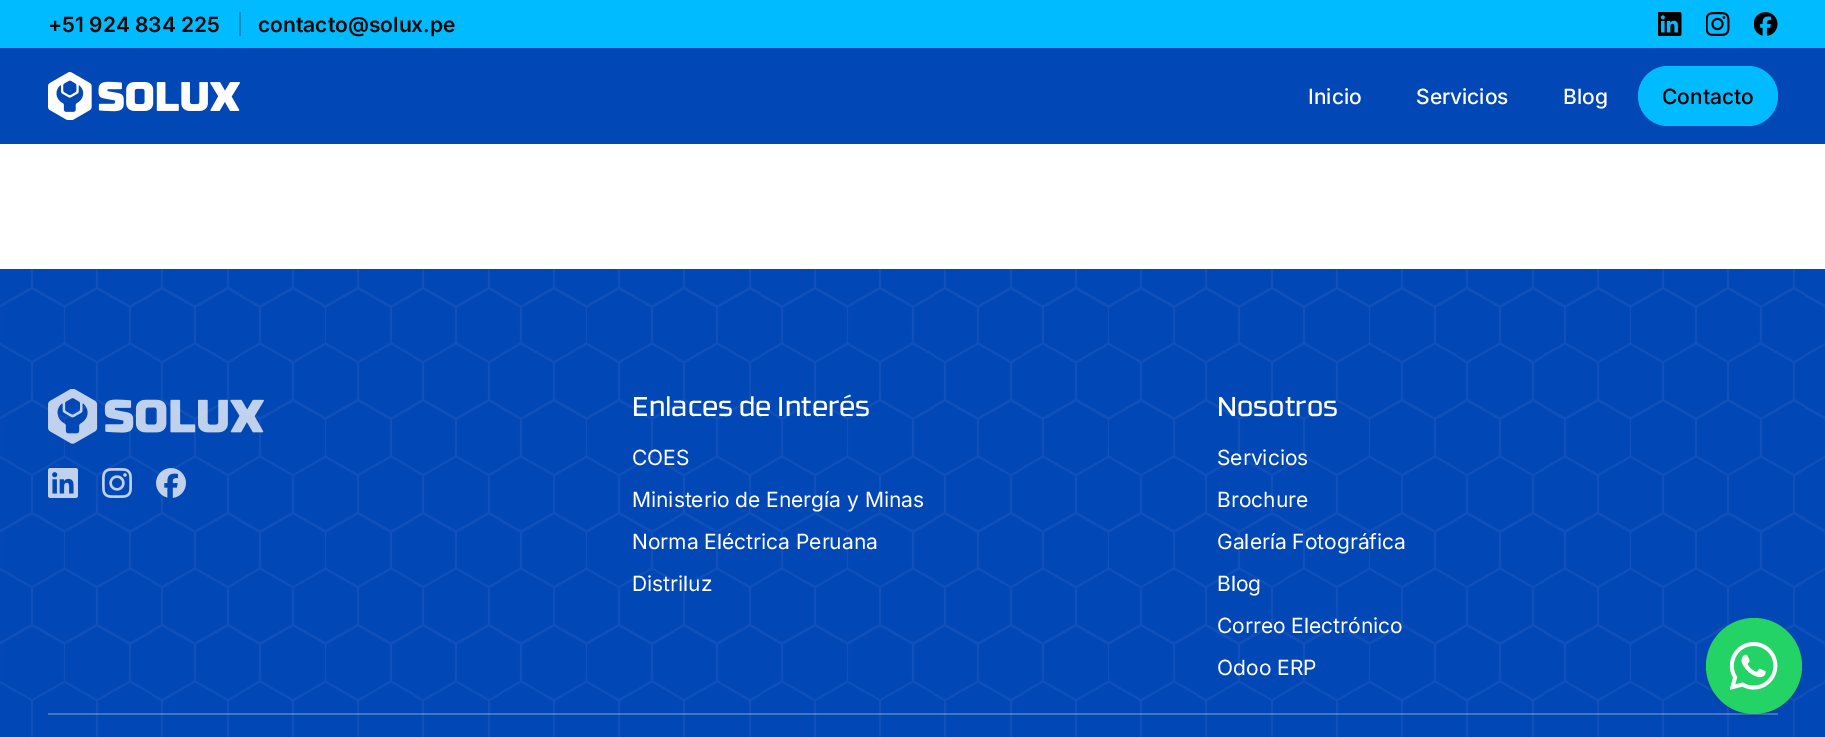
%!PS
<< /PageSize [1825 737] /PageUsesTransparency true >> setpagedevice
/fl/fill load def
/co { dup -16 bitshift 255 div exch dup -8 bitshift 255 and 255 div exch 255 and 255 div setrgbcolor } def
/fn { [ exch dup neg 0 0 3 -1 roll 0 0 ] selectfont } def
/tx { co fn moveto show } def
/bx { co rectfill } def
/al { dup .setfillconstantalpha .setstrokeconstantalpha } def
/ci { newpath 0 360 arc closepath } def
/rr { 5 dict begin { /r /h /w /y /x } { exch def } forall
  x r add y moveto x w add y 2 copy h add r arct x w add y h add x 1 index r arct
  x y h add x y r arct x y 2 copy exch w add exch r arct closepath end } def
/sh { 12 dict begin { /a /b /q /h /w /y /x } { exch def } forall gsave /was 0 def
  9 -2 -9 { dup b mul 4 div /e exch def 1 sub .425 mul 2.718 exch exp 1 add a .99 .min exch div /now exch def
    1 1 now sub 1 was sub div sub al /was now def
    w h .min e 2 mul add 0 gt { x e sub y e sub w e 2 mul add h e 2 mul add
      q e add b .6 mul add w h .min 2 div e add .min 0 .max rr fill } if } for grestore end } def
/im { 5 dict begin { /h /w /y /x /name } { exch def } forall
  gsave x y translate w h scale
  w h 8 [w 0 0 h 0 0] name (r) file false 3 colorimage grestore end } def
0 .pushpdf14devicefilter
0 737 translate 1 -1 scale
4 setmiterlimit
0 0 1825 737 16#FFFFFF bx
0 48 1825 96 16#0247B6 bx
0 0 1825 48 16#00BBFF bx
239 12 2 24 16#008CBF bx
(media/1.raw) 1658 12 24 24 im
(media/2.raw) 1706 12 24 24 im
(media/3.raw) 1754 12 24 24 im
(media/4.raw) 48 72 192 48 im
16#00BBFF co
1638 66 140 60 30 rr fl
0 269 1825 468 16#0247B6 bx
(media/5.raw) 0 269 1825 468 im
(media/6.raw) 48 389 216 55 im
(media/7.raw) 48 468 30 30 im
(media/8.raw) 102 468 30 30 im
(media/9.raw) 156 468 30 30 im
0.25 al
48 713 1730 2 16#FFFFFF bx
1 al
16#000000 co
1707 621 93 93 46.5 1.5 .1 sh
1706 620 96 96 48 2 .1 sh
16#24D366 co
1754 666 48 ci fl
(media/10.raw) 1730 642 48 48 im
(+51 924 834 225) 48 32 /Inter-SemiBold 21 16#0A0A0A tx
(contacto@solux.pe) 258 32 /Inter-SemiBold 21 16#0A0A0A tx
(Inicio) 1308 104 /Inter-Medium 21 16#FFFFFF tx
(Servicios) 1416 104 /Inter-Medium 21 16#FFFFFF tx
(Blog) 1563 104 /Inter-Medium 21 16#FFFFFF tx
(Contacto) 1662 104 /Inter-Medium 21 16#000000 tx
(Enlaces de Interés) 632 416 /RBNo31-Regular 27 16#FFFFFF tx
(COES) 632 465 /Inter-Regular 21 16#FFFFFF tx
(Ministerio de Energía y Minas) 632 507 /Inter-Regular 21 16#FFFFFF tx
(Norma Eléctrica Peruana) 632 549 /Inter-Regular 21 16#FFFFFF tx
(Distriluz) 632 591 /Inter-Regular 21 16#FFFFFF tx
(Nosotros) 1217 416 /RBNo31-Regular 27 16#FFFFFF tx
(Servicios) 1217 465 /Inter-Regular 21 16#FFFFFF tx
(Brochure) 1217 507 /Inter-Regular 21 16#FFFFFF tx
(Galería Fotográfica) 1217 549 /Inter-Regular 21 16#FFFFFF tx
(Blog) 1217 591 /Inter-Regular 21 16#FFFFFF tx
(Correo Electrónico) 1217 633 /Inter-Regular 21 16#FFFFFF tx
(Odoo ERP) 1217 675 /Inter-Regular 21 16#FFFFFF tx
.poppdf14devicefilter showpage
